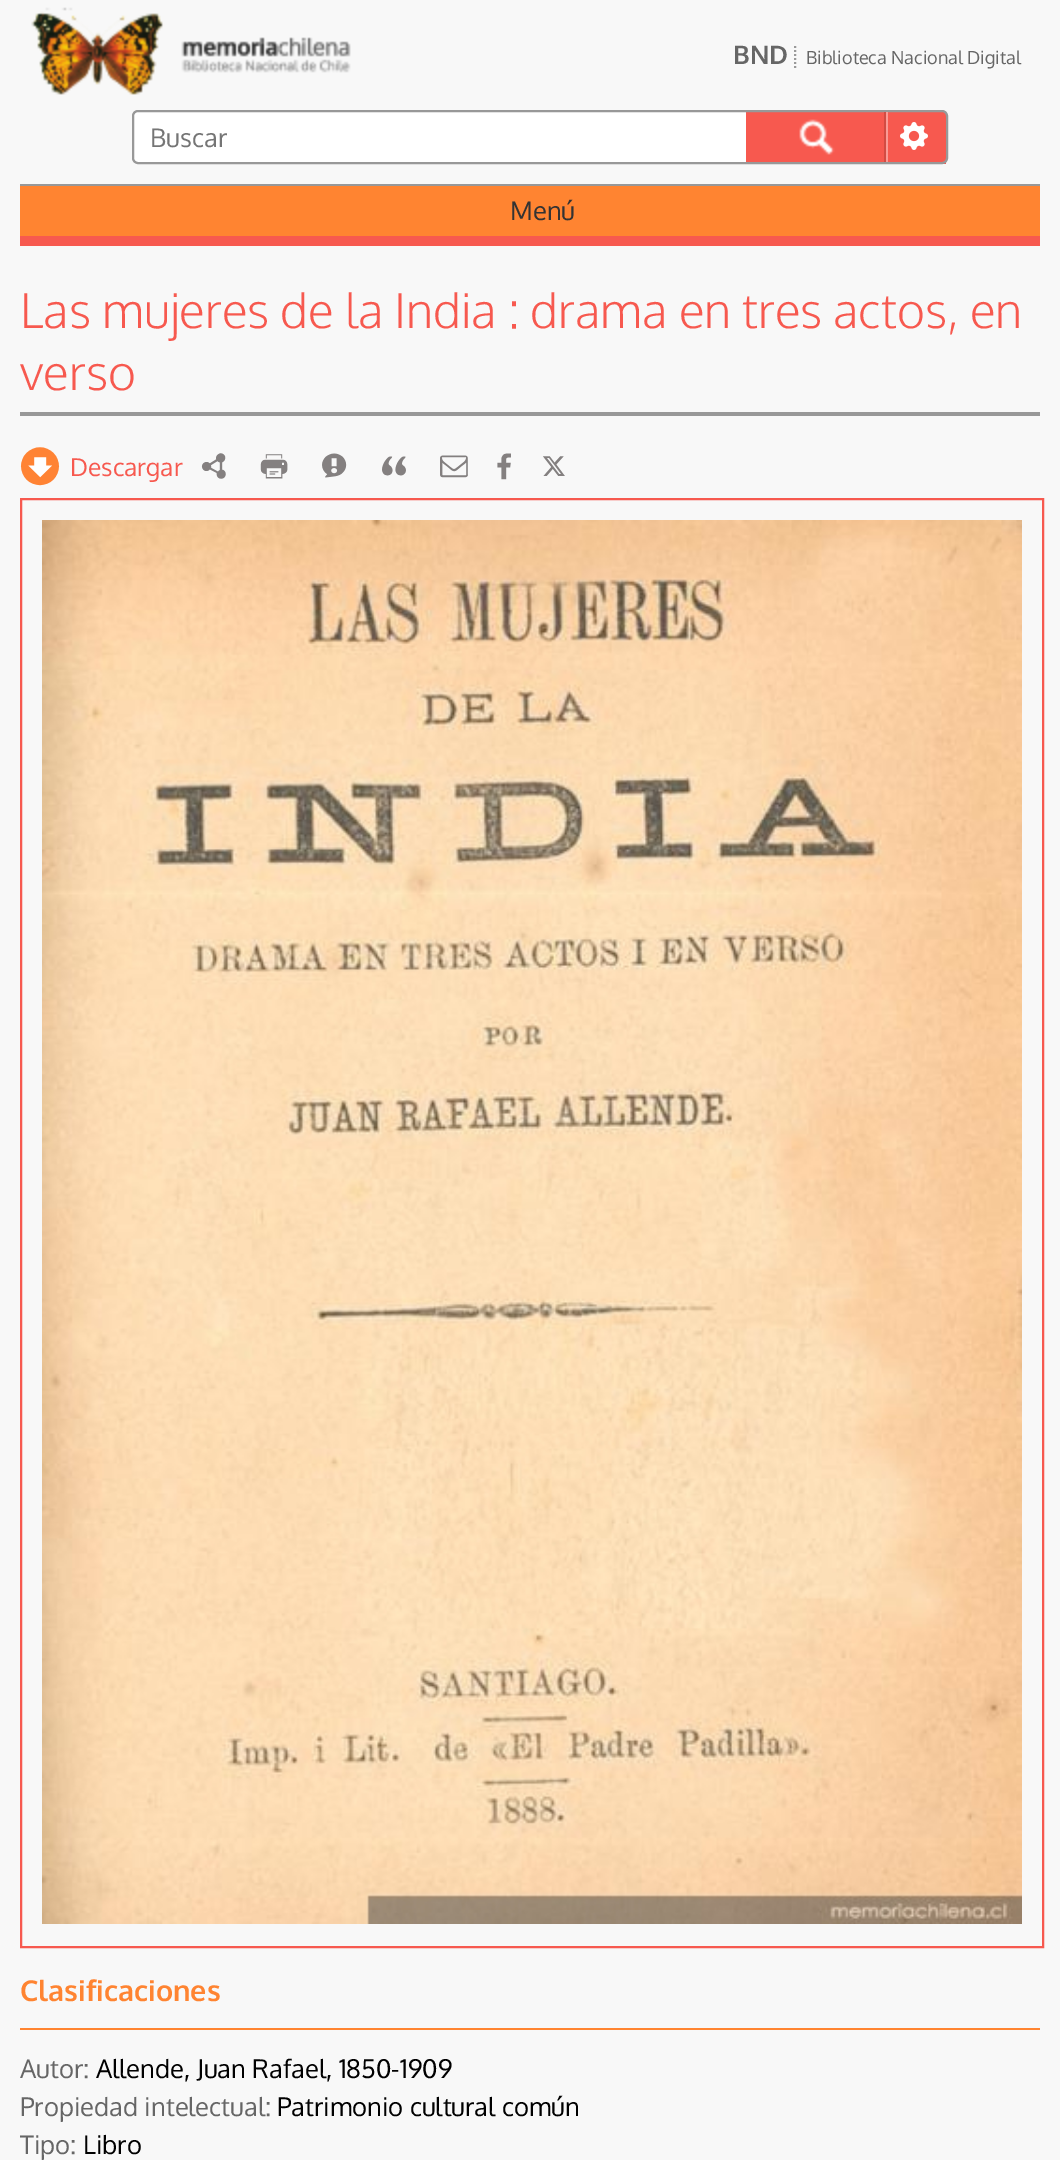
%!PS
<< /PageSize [1060 2160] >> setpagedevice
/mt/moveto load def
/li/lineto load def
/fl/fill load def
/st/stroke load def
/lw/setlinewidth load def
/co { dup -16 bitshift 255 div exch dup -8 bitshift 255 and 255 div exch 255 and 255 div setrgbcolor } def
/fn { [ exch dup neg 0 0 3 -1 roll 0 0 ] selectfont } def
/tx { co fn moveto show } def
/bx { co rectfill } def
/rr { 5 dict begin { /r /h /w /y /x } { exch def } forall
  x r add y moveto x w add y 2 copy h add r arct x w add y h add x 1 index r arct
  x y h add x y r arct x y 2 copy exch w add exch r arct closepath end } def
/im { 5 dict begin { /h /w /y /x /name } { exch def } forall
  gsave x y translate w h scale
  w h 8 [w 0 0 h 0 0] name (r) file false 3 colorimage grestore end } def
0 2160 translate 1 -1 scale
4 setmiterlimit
0 0 1060 2160 16#F8F8F8 bx
(media/1.raw) 31 7 320 88 im
16#999999 co
2 lw
[2 2] 0 setdash
795 46 mt 795 68 li st
16#FFFFFF co
132 110 816 54 6 rr fl
746 112 200 52 16#F7594F bx
16#989898 co
[] 0 setdash
133 111 814 52 5 rr st
(media/2.raw) 799 119 36 36 im
884 112 2 50 16#D24C43 bx
886 112 2 50 16#FA9B95 bx
(media/3.raw) 900 122 28 28 im
20 186 1020 50 16#FF8431 bx
20 184 1020 2 16#989898 bx
20 236 1020 10 16#F7594F bx
20 412 1020 4 16#989898 bx
(media/4.raw) 20 447 40 39 im
(media/5.raw) 201 453 25 26 im
(media/6.raw) 260 454 28 25 im
(media/7.raw) 322 453 25 25 im
(media/8.raw) 382 456 24 20 im
(media/9.raw) 440 455 28 23 im
(media/10.raw) 497 453 14 27 im
(media/11.raw) 543 456 22 20 im
16#F7594F co
21 499 1022 1448 rectstroke
(media/12.raw) 42 520 980 1404 im
20 2028 1020 2 16#FF8431 bx
(BND) 733 64 /Oxygen-Bold 25.6 16#666666 tx
(Biblioteca Nacional Digital) 806 64 /Oxygen-Regular 18 16#666666 tx
(Buscar) 150 147 /Oxygen-Regular 25.6 16#757575 tx
(Menú) 510 220 /Oxygen-Regular 25.6 16#333333 tx
(Las mujeres de la India : drama en tres actos, en) 20 328 /Oxygen-Light 48 16#F7594F tx
(verso) 20 390 /Oxygen-Light 48 16#F7594F tx
(Descargar) 70 476 /Oxygen-Regular 24.5 16#F7594F tx
(Clasificaciones) 20 2001 /Oxygen-Bold 28.75 16#FF8431 tx
(Autor:) 20 2078 /Oxygen-Regular 25.6 16#666666 tx
(Allende, Juan Rafael, 1850-1909) 96 2078 /Oxygen-Regular 25.6 16#000000 tx
(Propiedad intelectual:) 20 2116 /Oxygen-Regular 25.6 16#666666 tx
(Patrimonio cultural común) 277 2116 /Oxygen-Regular 25.6 16#000000 tx
(Tipo:) 20 2154 /Oxygen-Regular 25.6 16#666666 tx
(Libro) 83 2154 /Oxygen-Regular 25.6 16#000000 tx
showpage
